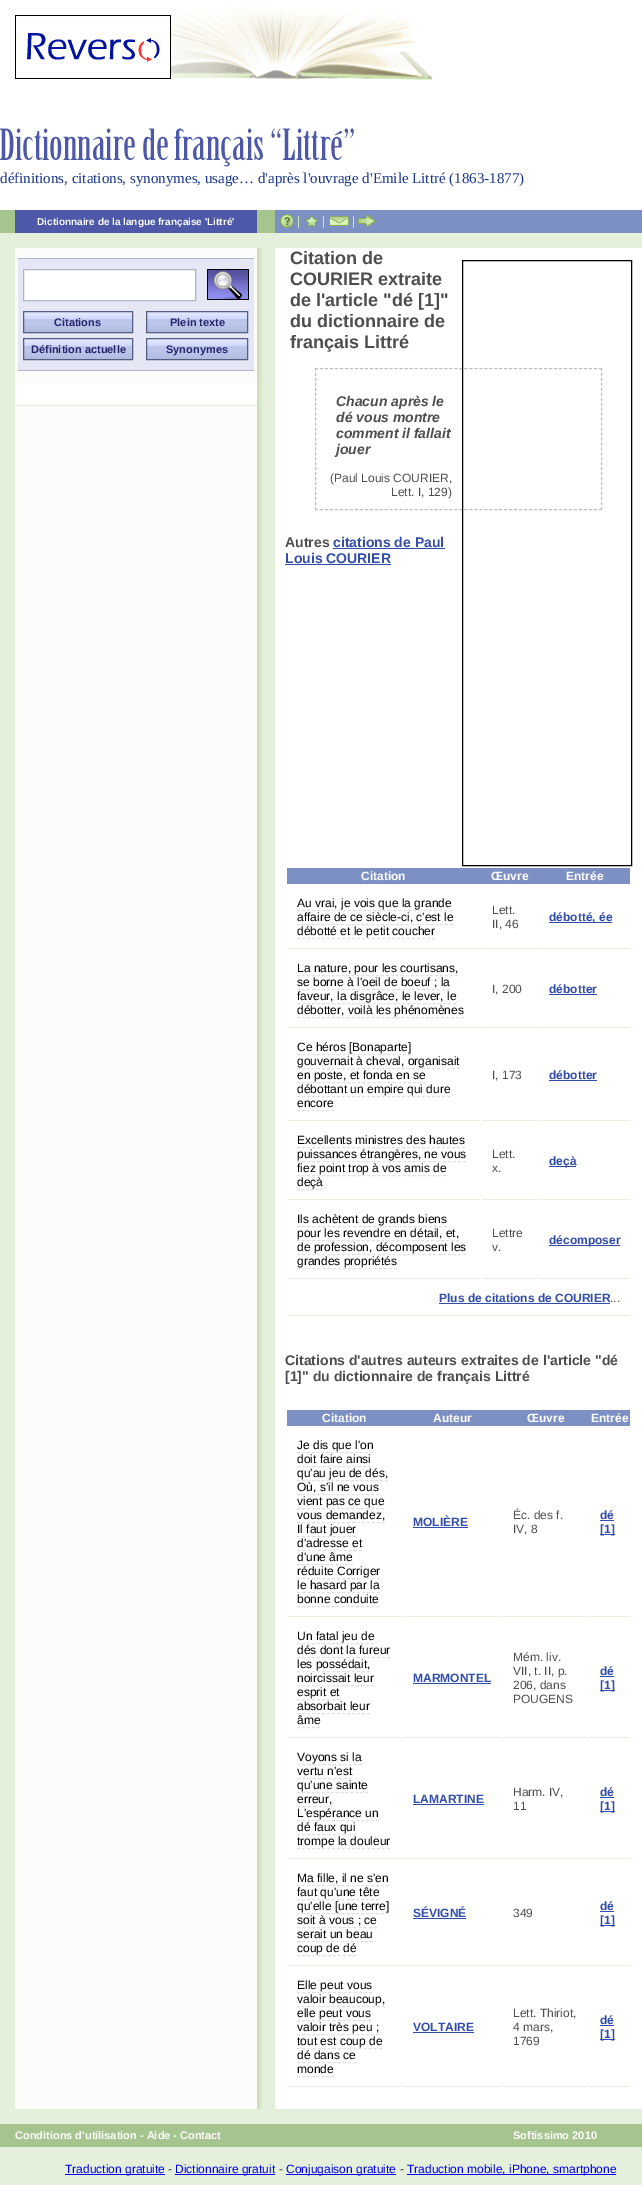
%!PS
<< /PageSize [642 2185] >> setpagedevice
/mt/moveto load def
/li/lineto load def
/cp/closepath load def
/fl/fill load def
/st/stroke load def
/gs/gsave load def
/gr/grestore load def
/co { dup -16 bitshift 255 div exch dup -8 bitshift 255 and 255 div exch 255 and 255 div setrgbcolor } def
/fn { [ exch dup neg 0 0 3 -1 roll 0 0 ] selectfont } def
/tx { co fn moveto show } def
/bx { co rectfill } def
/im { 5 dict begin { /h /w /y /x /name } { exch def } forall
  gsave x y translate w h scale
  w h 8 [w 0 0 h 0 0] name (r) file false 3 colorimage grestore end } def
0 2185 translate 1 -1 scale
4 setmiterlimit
0 0 642 2185 16#E4F0DB bx
0 0 642 210 16#FFFFFF bx
(media/1.raw) 117 7 315 73 im
(media/2.raw) 15 15 156 64 im
(media/3.raw) 0 128 354 39 im
0 210 275 23 16#A6C58E bx
15 210 242 23 16#4D59A8 bx
275 210 367 23 16#7D90C3 bx
(media/4.raw) 280 214 14 14 im
(media/5.raw) 304 214 15 14 im
(media/6.raw) 329 216 20 10 im
(media/7.raw) 358 215 17 12 im
275 248 367 1861 16#FFFFFF bx
(media/8.raw) 0 248 275 1861 im
18 259 236 111 16#E5E8F4 bx
18 258 236 1 16#B0B5C8 bx
18 370 236 1 16#B0B5C8 bx
16#FFFFFF co
23.5 269.5 mt 195.5 269.5 li 195.5 300.5 li 23.5 300.5 li cp gs fl gr
16#B0B5C8 co
st
(media/9.raw) 207 269 42 31 im
(media/10.raw) 24 312 108 20 im
16#545D82 co
23.5 311.5 109 21 rectstroke
(media/11.raw) 147 312 100 20 im
146.5 311.5 101 21 rectstroke
(media/10.raw) 24 339 108 20 im
23.5 338.5 109 21 rectstroke
(media/11.raw) 147 339 100 20 im
146.5 338.5 101 21 rectstroke
15 383 242 22 16#FFFFFF bx
15 405 242 1 16#E4F0DB bx
16#C0C0C0 co
[3 1.98] 0 setdash
315 368.5 mt 602 368.5 li st
[3 1.96] 0 setdash
601.5 368 mt 601.5 510 li st
[3 1.98] 0 setdash
315 509.5 mt 602 509.5 li st
[3 1.96] 0 setdash
315.5 368 mt 315.5 510 li st
333 548 112 1 16#324CA9 bx
285 564 106 1 16#324CA9 bx
287 868 343 16 16#7D90C3 bx
287 948 193 1 16#E4F0DB bx
16#E0E0E0 co
[3 2.07] 0 setdash
297 910.5 mt 452 910.5 li st
[3 1.94] 0 setdash
297 924.5 mt 453 924.5 li st
[3 2] 0 setdash
297 938.5 mt 435 938.5 li st
482 948 55 1 16#E4F0DB bx
539 948 91 1 16#E4F0DB bx
549 922 63 1 16#324CA9 bx
287 1027 193 1 16#E4F0DB bx
16#E0E0E0 co
[3 1.94] 0 setdash
297 975.5 mt 458 975.5 li st
[3 2] 0 setdash
297 989.5 mt 450 989.5 li st
[3 2.03] 0 setdash
297 1003.5 mt 456 1003.5 li st
[3 1.97] 0 setdash
297 1017.5 mt 464 1017.5 li st
482 1027 55 1 16#E4F0DB bx
539 1027 91 1 16#E4F0DB bx
549 994 48 1 16#324CA9 bx
287 1120 193 1 16#E4F0DB bx
16#E0E0E0 co
[3 2.05] 0 setdash
297 1054.5 mt 411 1054.5 li st
[3 2] 0 setdash
297 1068.5 mt 460 1068.5 li st
[3 2.04] 0 setdash
297 1082.5 mt 426 1082.5 li st
[3 2] 0 setdash
297 1096.5 mt 450 1096.5 li st
[3 1.86] 0 setdash
297 1110.5 mt 334 1110.5 li st
482 1120 55 1 16#E4F0DB bx
539 1120 91 1 16#E4F0DB bx
549 1080 48 1 16#324CA9 bx
287 1199 193 1 16#E4F0DB bx
16#E0E0E0 co
[3 2] 0 setdash
297 1147.5 mt 465 1147.5 li st
[3 2.03] 0 setdash
297 1161.5 mt 466 1161.5 li st
297 1175.5 mt 446 1175.5 li st
[3 1.6] 0 setdash
297 1189.5 mt 323 1189.5 li st
482 1199 55 1 16#E4F0DB bx
539 1199 91 1 16#E4F0DB bx
549 1166 27 1 16#324CA9 bx
287 1278 193 1 16#E4F0DB bx
16#E0E0E0 co
[3 2.07] 0 setdash
297 1226.5 mt 447 1226.5 li st
[3 1.97] 0 setdash
297 1240.5 mt 459 1240.5 li st
[3 2.03] 0 setdash
297 1254.5 mt 466 1254.5 li st
[3 2.11] 0 setdash
297 1268.5 mt 397 1268.5 li st
482 1278 55 1 16#E4F0DB bx
539 1278 91 1 16#E4F0DB bx
549 1245 71 1 16#324CA9 bx
287 1315 343 1 16#E4F0DB bx
439 1303 171 1 16#324CA9 bx
287 1410 343 16 16#7D90C3 bx
287 1616 114 1 16#E4F0DB bx
16#E0E0E0 co
[3 1.87] 0 setdash
297 1452.5 mt 373 1452.5 li st
[3 2.07] 0 setdash
297 1466.5 mt 371 1466.5 li st
[3 1.89] 0 setdash
297 1480.5 mt 388 1480.5 li st
[3 1.94] 0 setdash
297 1494.5 mt 379 1494.5 li st
297 1508.5 mt 384 1508.5 li st
[3 2] 0 setdash
297 1522.5 mt 385 1522.5 li st
[3 2.09] 0 setdash
297 1536.5 mt 356 1536.5 li st
[3 2.17] 0 setdash
297 1550.5 mt 362 1550.5 li st
[3 1.82] 0 setdash
297 1564.5 mt 353 1564.5 li st
[3 2] 0 setdash
297 1578.5 mt 380 1578.5 li st
297 1592.5 mt 380 1592.5 li st
[3 1.94] 0 setdash
297 1606.5 mt 379 1606.5 li st
403 1616 98 1 16#E4F0DB bx
413 1527 55 1 16#324CA9 bx
503 1616 85 1 16#E4F0DB bx
590 1616 40 1 16#E4F0DB bx
600 1520 14 1 16#324CA9 bx
600 1534 15 1 16#324CA9 bx
287 1737 114 1 16#E4F0DB bx
16#E0E0E0 co
[3 1.93] 0 setdash
297 1643.5 mt 374 1643.5 li st
[3 2] 0 setdash
297 1657.5 mt 390 1657.5 li st
297 1671.5 mt 370 1671.5 li st
[3 1.93] 0 setdash
297 1685.5 mt 374 1685.5 li st
[3 2] 0 setdash
297 1699.5 mt 340 1699.5 li st
297 1713.5 mt 370 1713.5 li st
297 1727.5 mt 320 1727.5 li st
403 1737 98 1 16#E4F0DB bx
413 1683 78 1 16#324CA9 bx
503 1737 85 1 16#E4F0DB bx
590 1737 40 1 16#E4F0DB bx
600 1676 14 1 16#324CA9 bx
600 1690 15 1 16#324CA9 bx
287 1858 114 1 16#E4F0DB bx
16#E0E0E0 co
[3 2.17] 0 setdash
297 1764.5 mt 362 1764.5 li st
[3 2.2] 0 setdash
297 1778.5 mt 352 1778.5 li st
[3 1.86] 0 setdash
297 1792.5 mt 368 1792.5 li st
[3 2.33] 0 setdash
297 1806.5 mt 332 1806.5 li st
[3 1.94] 0 setdash
297 1820.5 mt 379 1820.5 li st
[3 2.09] 0 setdash
297 1834.5 mt 356 1834.5 li st
[3 2] 0 setdash
297 1848.5 mt 390 1848.5 li st
403 1858 98 1 16#E4F0DB bx
413 1804 71 1 16#324CA9 bx
503 1858 85 1 16#E4F0DB bx
590 1858 40 1 16#E4F0DB bx
600 1797 14 1 16#324CA9 bx
600 1811 15 1 16#324CA9 bx
287 1965 114 1 16#E4F0DB bx
16#E0E0E0 co
[3 1.94] 0 setdash
297 1885.5 mt 389 1885.5 li st
297 1899.5 mt 379 1899.5 li st
297 1913.5 mt 389 1913.5 li st
[3 2.13] 0 setdash
297 1927.5 mt 377 1927.5 li st
[3 1.87] 0 setdash
297 1941.5 mt 373 1941.5 li st
[3 2.09] 0 setdash
297 1955.5 mt 356 1955.5 li st
403 1965 98 1 16#E4F0DB bx
413 1918 53 1 16#324CA9 bx
503 1965 85 1 16#E4F0DB bx
590 1965 40 1 16#E4F0DB bx
600 1911 14 1 16#324CA9 bx
600 1925 15 1 16#324CA9 bx
287 2086 114 1 16#E4F0DB bx
16#E0E0E0 co
[3 2.14] 0 setdash
297 1992.5 mt 372 1992.5 li st
[3 2] 0 setdash
297 2006.5 mt 385 2006.5 li st
[3 2.07] 0 setdash
297 2020.5 mt 371 2020.5 li st
[3 1.94] 0 setdash
297 2034.5 mt 379 2034.5 li st
[3 2.12] 0 setdash
297 2048.5 mt 382 2048.5 li st
[3 2.09] 0 setdash
297 2062.5 mt 356 2062.5 li st
[3 1.86] 0 setdash
297 2076.5 mt 334 2076.5 li st
403 2086 98 1 16#E4F0DB bx
413 2032 61 1 16#324CA9 bx
503 2086 85 1 16#E4F0DB bx
590 2086 40 1 16#E4F0DB bx
600 2025 14 1 16#324CA9 bx
600 2039 15 1 16#324CA9 bx
16#000000 co
[] 0 setdash
462.5 260.5 169 605 rectstroke
0 2124 642 23 16#A6C58E bx
65 2174 100 1 16#0000EE bx
175 2174 100 1 16#0000EE bx
286 2174 110 1 16#0000EE bx
407 2174 209 1 16#0000EE bx
(définitions, citations, synonymes, usage… d'après l'ouvrage d'Emile Littré \(1863-1877\)) 0 183 /LiberationSerif-Regular 15 16#183589 tx
(Dictionnaire de la langue française 'Littré') 37 225 /LiberationSans-Bold 10 16#FFFFFF tx
(|) 297 225 /LiberationSans-Regular 12 16#D2EFAD tx
(|) 322 225 /LiberationSans-Regular 12 16#D2EFAD tx
(|) 352 225 /LiberationSans-Regular 12 16#D2EFAD tx
(Citations) 54 326 /LiberationSans-Bold 11 16#23276C tx
(Plein texte) 170 326 /LiberationSans-Bold 11 16#23276C tx
(Définition actuelle) 31 353 /LiberationSans-Bold 11 16#23276C tx
(Synonymes) 166 353 /LiberationSans-Bold 11 16#23276C tx
(Citation de) 290 264 /LiberationSans-Bold 18 16#4D4D4D tx
(COURIER extraite) 290 285 /LiberationSans-Bold 18 16#4D4D4D tx
(de l'article "dé [1]") 290 306 /LiberationSans-Bold 18 16#4D4D4D tx
(du dictionnaire de) 290 327 /LiberationSans-Bold 18 16#4D4D4D tx
(français Littré) 290 348 /LiberationSans-Bold 18 16#4D4D4D tx
(Chacun après le) 336 406 /LiberationSans-BoldItalic 14 16#4D4D4D tx
(dé vous montre) 336 422 /LiberationSans-BoldItalic 14 16#4D4D4D tx
(comment il fallait) 336 438 /LiberationSans-BoldItalic 14 16#4D4D4D tx
(jouer) 336 454 /LiberationSans-BoldItalic 14 16#4D4D4D tx
(\(Paul Louis COURIER,) 330 482 /LiberationSans-Regular 12 16#4D4D4D tx
(Lett. I, 129\)) 391 496 /LiberationSans-Regular 12 16#4D4D4D tx
(Autres) 285 547 /LiberationSans-Bold 14 16#4D4D4D tx
(citations de Paul) 333 547 /LiberationSans-Bold 14 16#324CA9 tx
(Louis COURIER) 285 563 /LiberationSans-Bold 14 16#324CA9 tx
(Citation) 361 880 /LiberationSans-Bold 12 16#FFFFFF tx
(Œuvre) 491 880 /LiberationSans-Bold 12 16#FFFFFF tx
(Entrée) 566 880 /LiberationSans-Bold 12 16#FFFFFF tx
(Au vrai, je vois que la grande) 297 907 /LiberationSans-Regular 12 16#000000 tx
(affaire de ce siècle-ci, c'est le) 297 921 /LiberationSans-Regular 12 16#000000 tx
(débotté et le petit coucher) 297 935 /LiberationSans-Regular 12 16#000000 tx
(Lett.) 492 914 /LiberationSans-Regular 12 16#4D4D4D tx
(II, 46) 492 928 /LiberationSans-Regular 12 16#4D4D4D tx
(débotté, ée) 549 921 /LiberationSans-Bold 12 16#324CA9 tx
(La nature, pour les courtisans,) 297 972 /LiberationSans-Regular 12 16#000000 tx
(se borne à l'oeil de boeuf ; la) 297 986 /LiberationSans-Regular 12 16#000000 tx
(faveur, la disgrâce, le lever, le) 297 1000 /LiberationSans-Regular 12 16#000000 tx
(débotter, voilà les phénomènes) 297 1014 /LiberationSans-Regular 12 16#000000 tx
(I, 200) 492 993 /LiberationSans-Regular 12 16#4D4D4D tx
(débotter) 549 993 /LiberationSans-Bold 12 16#324CA9 tx
(Ce héros [Bonaparte]) 297 1051 /LiberationSans-Regular 12 16#000000 tx
(gouvernait à cheval, organisait) 297 1065 /LiberationSans-Regular 12 16#000000 tx
(en poste, et fonda en se) 297 1079 /LiberationSans-Regular 12 16#000000 tx
(débottant un empire qui dure) 297 1093 /LiberationSans-Regular 12 16#000000 tx
(encore) 297 1107 /LiberationSans-Regular 12 16#000000 tx
(I, 173) 492 1079 /LiberationSans-Regular 12 16#4D4D4D tx
(débotter) 549 1079 /LiberationSans-Bold 12 16#324CA9 tx
(Excellents ministres des hautes) 297 1144 /LiberationSans-Regular 12 16#000000 tx
(puissances étrangères, ne vous) 297 1158 /LiberationSans-Regular 12 16#000000 tx
(fiez point trop à vos amis de) 297 1172 /LiberationSans-Regular 12 16#000000 tx
(deçà) 297 1186 /LiberationSans-Regular 12 16#000000 tx
(Lett.) 492 1158 /LiberationSans-Regular 12 16#4D4D4D tx
(x.) 492 1172 /LiberationSans-Regular 12 16#4D4D4D tx
(deçà) 549 1165 /LiberationSans-Bold 12 16#324CA9 tx
(Ils achètent de grands biens) 297 1223 /LiberationSans-Regular 12 16#000000 tx
(pour les revendre en détail, et,) 297 1237 /LiberationSans-Regular 12 16#000000 tx
(de profession, décomposent les) 297 1251 /LiberationSans-Regular 12 16#000000 tx
(grandes propriétés) 297 1265 /LiberationSans-Regular 12 16#000000 tx
(Lettre) 492 1237 /LiberationSans-Regular 12 16#4D4D4D tx
(v.) 492 1251 /LiberationSans-Regular 12 16#4D4D4D tx
(décomposer) 549 1244 /LiberationSans-Bold 12 16#324CA9 tx
(Plus de citations de COURIER) 439 1302 /LiberationSans-Bold 12 16#324CA9 tx
(...) 610 1302 /LiberationSans-Regular 12 16#4D4D4D tx
(Citations d'autres auteurs extraites de l'article "dé) 285 1365 /LiberationSans-Bold 14 16#4D4D4D tx
([1]" du dictionnaire de français Littré) 285 1381 /LiberationSans-Bold 14 16#4D4D4D tx
(Citation) 322 1422 /LiberationSans-Bold 12 16#FFFFFF tx
(Auteur) 433 1422 /LiberationSans-Bold 12 16#FFFFFF tx
(Œuvre) 527 1422 /LiberationSans-Bold 12 16#FFFFFF tx
(Entrée) 591 1422 /LiberationSans-Bold 12 16#FFFFFF tx
(Je dis que l'on) 297 1449 /LiberationSans-Regular 12 16#000000 tx
(doit faire ainsi) 297 1463 /LiberationSans-Regular 12 16#000000 tx
(qu'au jeu de dés,) 297 1477 /LiberationSans-Regular 12 16#000000 tx
(Où, s'il ne vous) 297 1491 /LiberationSans-Regular 12 16#000000 tx
(vient pas ce que) 297 1505 /LiberationSans-Regular 12 16#000000 tx
(vous demandez,) 297 1519 /LiberationSans-Regular 12 16#000000 tx
(Il faut jouer) 297 1533 /LiberationSans-Regular 12 16#000000 tx
(d'adresse et) 297 1547 /LiberationSans-Regular 12 16#000000 tx
(d'une âme) 297 1561 /LiberationSans-Regular 12 16#000000 tx
(réduite Corriger) 297 1575 /LiberationSans-Regular 12 16#000000 tx
(le hasard par la) 297 1589 /LiberationSans-Regular 12 16#000000 tx
(bonne conduite) 297 1603 /LiberationSans-Regular 12 16#000000 tx
(MOLIÈRE) 413 1526 /LiberationSans-Bold 12 16#324CA9 tx
(Éc. des f.) 513 1519 /LiberationSans-Regular 12 16#4D4D4D tx
(IV, 8) 513 1533 /LiberationSans-Regular 12 16#4D4D4D tx
(dé) 600 1519 /LiberationSans-Bold 12 16#324CA9 tx
([1]) 600 1533 /LiberationSans-Bold 12 16#324CA9 tx
(Un fatal jeu de) 297 1640 /LiberationSans-Regular 12 16#000000 tx
(dés dont la fureur) 297 1654 /LiberationSans-Regular 12 16#000000 tx
(les possédait,) 297 1668 /LiberationSans-Regular 12 16#000000 tx
(noircissait leur) 297 1682 /LiberationSans-Regular 12 16#000000 tx
(esprit et) 297 1696 /LiberationSans-Regular 12 16#000000 tx
(absorbait leur) 297 1710 /LiberationSans-Regular 12 16#000000 tx
(âme) 297 1724 /LiberationSans-Regular 12 16#000000 tx
(MARMONTEL) 413 1682 /LiberationSans-Bold 12 16#324CA9 tx
(Mém. liv.) 513 1661 /LiberationSans-Regular 12 16#4D4D4D tx
(VII, t. II, p.) 513 1675 /LiberationSans-Regular 12 16#4D4D4D tx
(206, dans) 513 1689 /LiberationSans-Regular 12 16#4D4D4D tx
(POUGENS) 513 1703 /LiberationSans-Regular 12 16#4D4D4D tx
(dé) 600 1675 /LiberationSans-Bold 12 16#324CA9 tx
([1]) 600 1689 /LiberationSans-Bold 12 16#324CA9 tx
(Voyons si la) 297 1761 /LiberationSans-Regular 12 16#000000 tx
(vertu n'est) 297 1775 /LiberationSans-Regular 12 16#000000 tx
(qu'une sainte) 297 1789 /LiberationSans-Regular 12 16#000000 tx
(erreur,) 297 1803 /LiberationSans-Regular 12 16#000000 tx
(L'espérance un) 297 1817 /LiberationSans-Regular 12 16#000000 tx
(dé faux qui) 297 1831 /LiberationSans-Regular 12 16#000000 tx
(trompe la douleur) 297 1845 /LiberationSans-Regular 12 16#000000 tx
(LAMARTINE) 413 1803 /LiberationSans-Bold 12 16#324CA9 tx
(Harm. IV,) 513 1796 /LiberationSans-Regular 12 16#4D4D4D tx
(11) 513 1810 /LiberationSans-Regular 12 16#4D4D4D tx
(dé) 600 1796 /LiberationSans-Bold 12 16#324CA9 tx
([1]) 600 1810 /LiberationSans-Bold 12 16#324CA9 tx
(Ma fille, il ne s'en) 297 1882 /LiberationSans-Regular 12 16#000000 tx
(faut qu'une tête) 297 1896 /LiberationSans-Regular 12 16#000000 tx
(qu'elle [une terre]) 297 1910 /LiberationSans-Regular 12 16#000000 tx
(soit à vous ; ce) 297 1924 /LiberationSans-Regular 12 16#000000 tx
(serait un beau) 297 1938 /LiberationSans-Regular 12 16#000000 tx
(coup de dé) 297 1952 /LiberationSans-Regular 12 16#000000 tx
(SÉVIGNÉ) 413 1917 /LiberationSans-Bold 12 16#324CA9 tx
(349) 513 1917 /LiberationSans-Regular 12 16#4D4D4D tx
(dé) 600 1910 /LiberationSans-Bold 12 16#324CA9 tx
([1]) 600 1924 /LiberationSans-Bold 12 16#324CA9 tx
(Elle peut vous) 297 1989 /LiberationSans-Regular 12 16#000000 tx
(valoir beaucoup,) 297 2003 /LiberationSans-Regular 12 16#000000 tx
(elle peut vous) 297 2017 /LiberationSans-Regular 12 16#000000 tx
(valoir très peu ;) 297 2031 /LiberationSans-Regular 12 16#000000 tx
(tout est coup de) 297 2045 /LiberationSans-Regular 12 16#000000 tx
(dé dans ce) 297 2059 /LiberationSans-Regular 12 16#000000 tx
(monde) 297 2073 /LiberationSans-Regular 12 16#000000 tx
(VOLTAIRE) 413 2031 /LiberationSans-Bold 12 16#324CA9 tx
(Lett. Thiriot,) 513 2017 /LiberationSans-Regular 12 16#4D4D4D tx
(4 mars,) 513 2031 /LiberationSans-Regular 12 16#4D4D4D tx
(1769) 513 2045 /LiberationSans-Regular 12 16#4D4D4D tx
(dé) 600 2024 /LiberationSans-Bold 12 16#324CA9 tx
([1]) 600 2038 /LiberationSans-Bold 12 16#324CA9 tx
(Conditions d'utilisation - Aide - Contact) 15 2139 /LiberationSans-Bold 11 16#FFFFFF tx
(Softissimo 2010) 513 2139 /LiberationSans-Bold 11 16#FFFFFF tx
(Traduction gratuite) 65 2173 /LiberationSans-Regular 12 16#0000EE tx
(-) 168 2173 /LiberationSans-Regular 12 16#4D4D4D tx
(Dictionnaire gratuit) 175 2173 /LiberationSans-Regular 12 16#0000EE tx
(-) 279 2173 /LiberationSans-Regular 12 16#4D4D4D tx
(Conjugaison gratuite) 286 2173 /LiberationSans-Regular 12 16#0000EE tx
(-) 400 2173 /LiberationSans-Regular 12 16#4D4D4D tx
(Traduction mobile, iPhone, smartphone) 407 2173 /LiberationSans-Regular 12 16#0000EE tx
showpage
